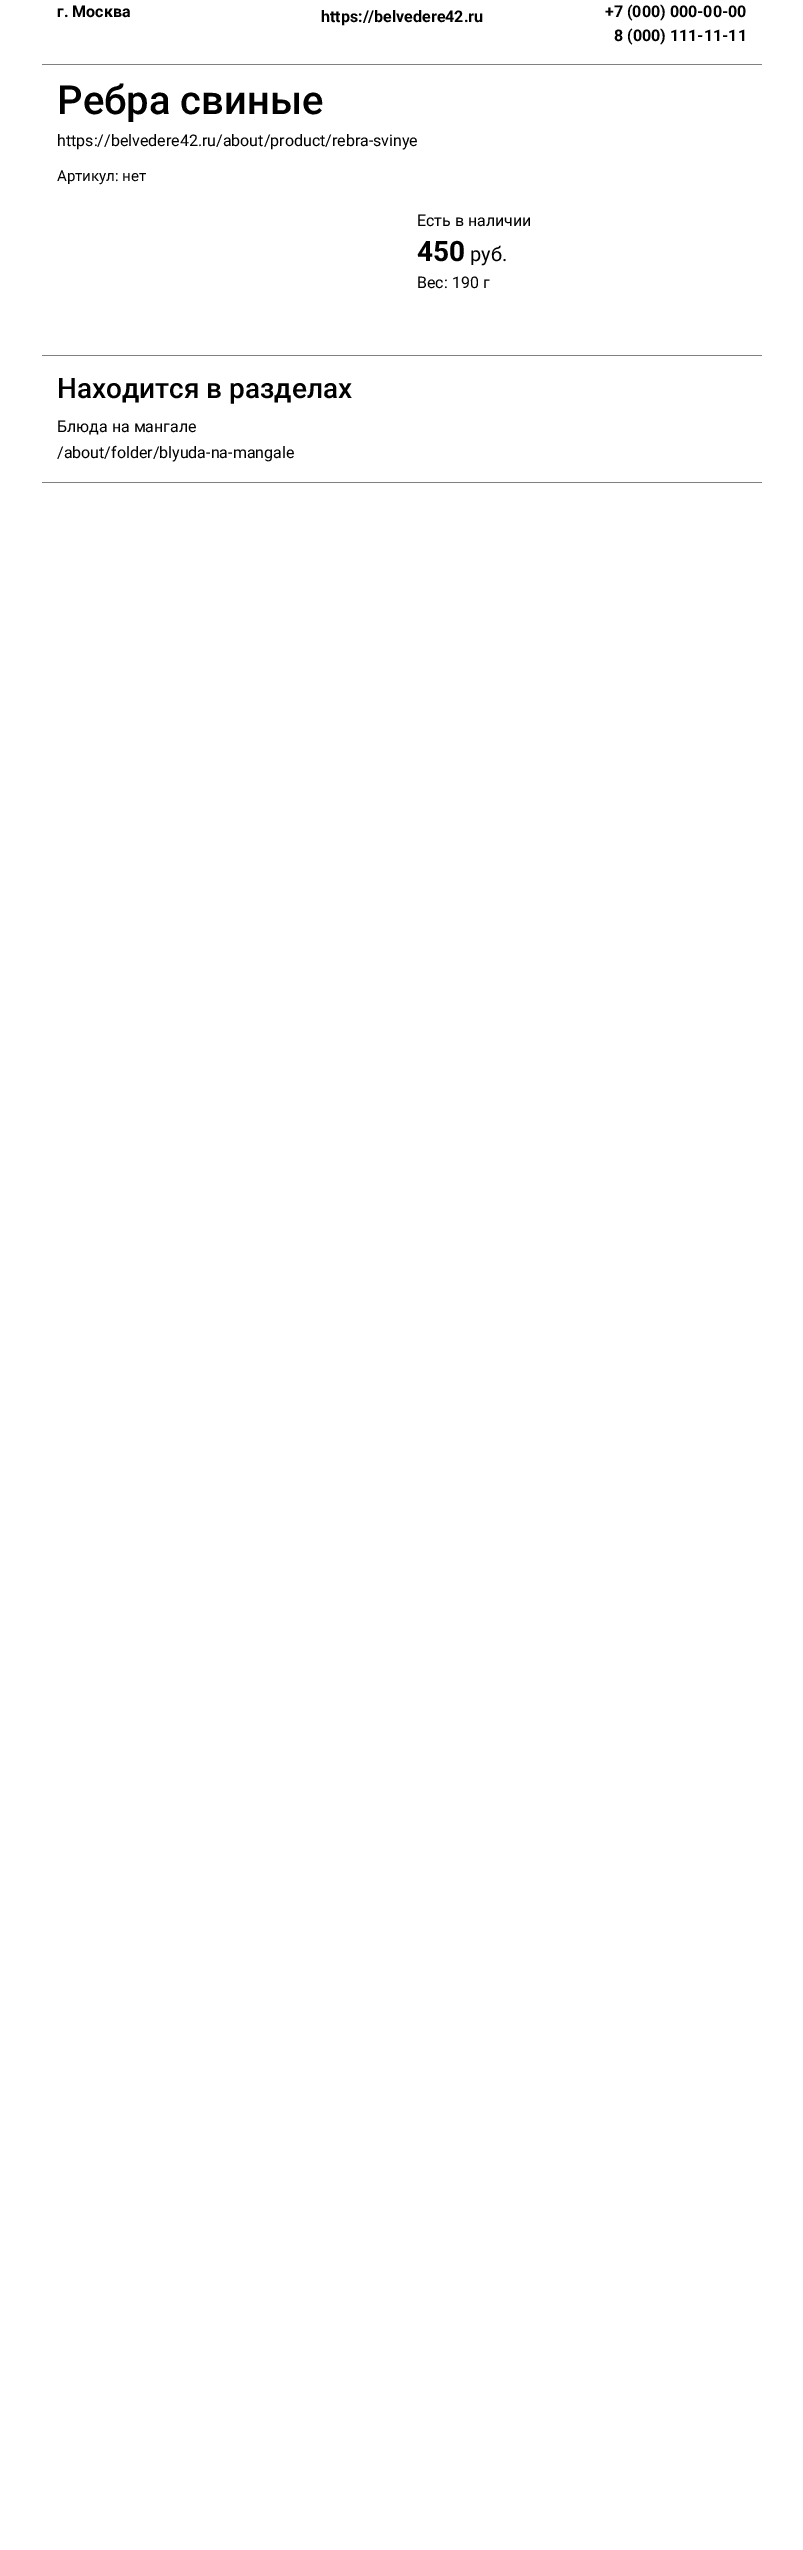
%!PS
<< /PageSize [803 2550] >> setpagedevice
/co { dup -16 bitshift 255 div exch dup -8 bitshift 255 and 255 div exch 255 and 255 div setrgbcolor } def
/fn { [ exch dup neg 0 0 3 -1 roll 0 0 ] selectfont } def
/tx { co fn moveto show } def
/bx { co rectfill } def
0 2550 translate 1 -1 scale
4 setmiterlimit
0 0 803 2550 16#FFFFFF bx
42 64 720 1 16#808080 bx
42 355 720 1 16#808080 bx
42 482 720 1 16#808080 bx
(г. Москва) 57 17 /Roboto-Bold 16 16#000000 tx
(https://belvedere42.ru) 321 22 /Roboto-Bold 16 16#000000 tx
(+7 \(000\) 000-00-00) 605 17 /Roboto-Bold 16 16#000000 tx
(8 \(000\) 111-11-11) 614 41 /Roboto-Bold 16 16#000000 tx
(Ребра свиные) 57 114 /Roboto-Medium 40 16#000000 tx
(https://belvedere42.ru/about/product/rebra-svinye) 57 146 /Roboto-Regular 16 16#000000 tx
(Артикул: нет) 57 181 /Roboto-Regular 15 16#000000 tx
(Есть в наличии) 417 226 /Roboto-Regular 16 16#000000 tx
(450) 417 261 /Roboto-Bold 28 16#000000 tx
(руб.) 470 261 /Roboto-Regular 20 16#000000 tx
(Вес: 190 г) 417 288 /Roboto-Regular 16 16#000000 tx
(Находится в разделах) 57 398 /Roboto-Medium 28 16#000000 tx
(Блюда на мангале) 57 432 /Roboto-Regular 16 16#000000 tx
(/about/folder/blyuda-na-mangale) 57 458 /Roboto-Regular 16 16#000000 tx
showpage
